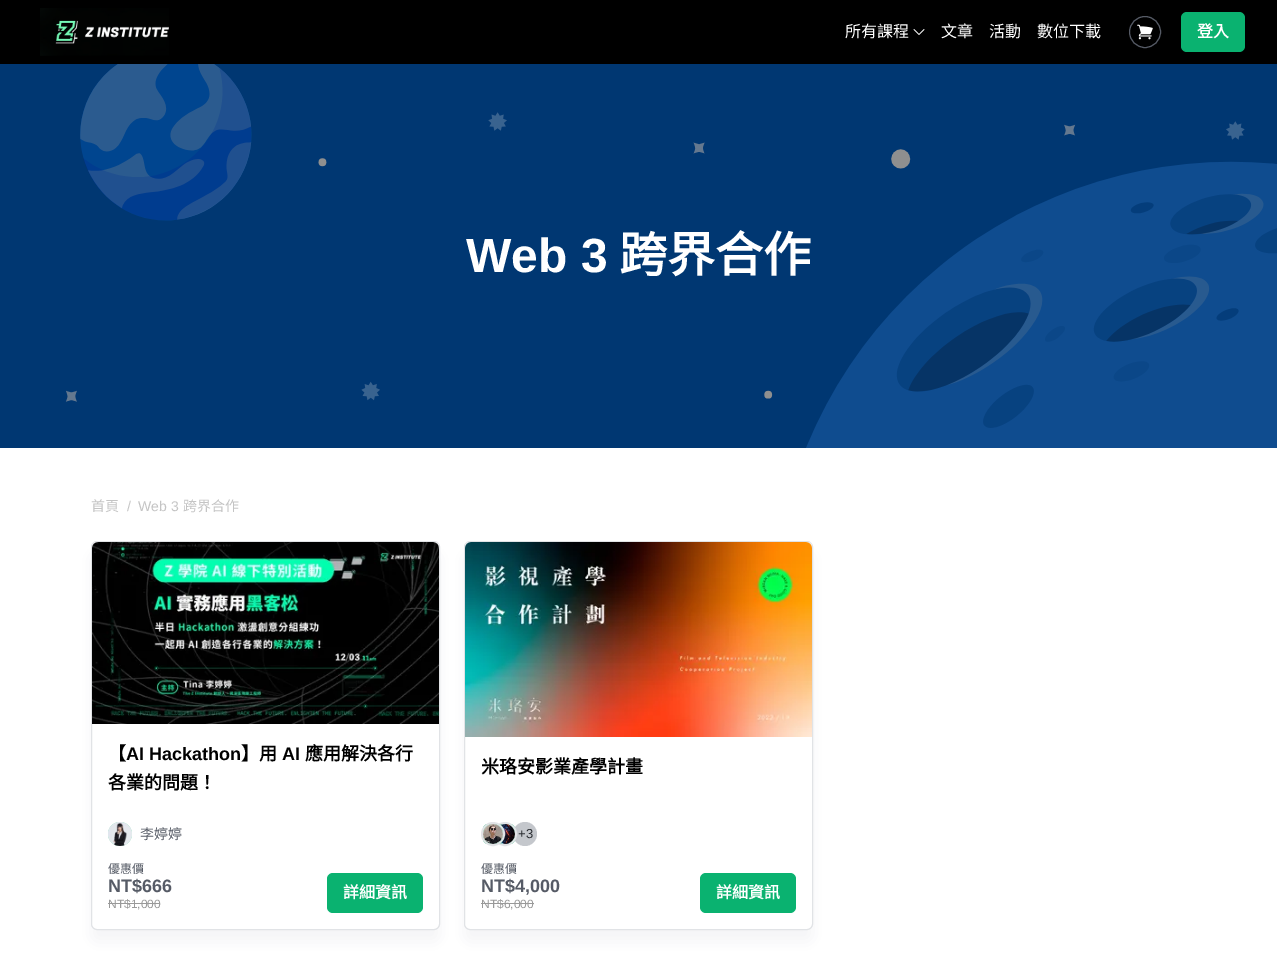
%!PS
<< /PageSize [1277 969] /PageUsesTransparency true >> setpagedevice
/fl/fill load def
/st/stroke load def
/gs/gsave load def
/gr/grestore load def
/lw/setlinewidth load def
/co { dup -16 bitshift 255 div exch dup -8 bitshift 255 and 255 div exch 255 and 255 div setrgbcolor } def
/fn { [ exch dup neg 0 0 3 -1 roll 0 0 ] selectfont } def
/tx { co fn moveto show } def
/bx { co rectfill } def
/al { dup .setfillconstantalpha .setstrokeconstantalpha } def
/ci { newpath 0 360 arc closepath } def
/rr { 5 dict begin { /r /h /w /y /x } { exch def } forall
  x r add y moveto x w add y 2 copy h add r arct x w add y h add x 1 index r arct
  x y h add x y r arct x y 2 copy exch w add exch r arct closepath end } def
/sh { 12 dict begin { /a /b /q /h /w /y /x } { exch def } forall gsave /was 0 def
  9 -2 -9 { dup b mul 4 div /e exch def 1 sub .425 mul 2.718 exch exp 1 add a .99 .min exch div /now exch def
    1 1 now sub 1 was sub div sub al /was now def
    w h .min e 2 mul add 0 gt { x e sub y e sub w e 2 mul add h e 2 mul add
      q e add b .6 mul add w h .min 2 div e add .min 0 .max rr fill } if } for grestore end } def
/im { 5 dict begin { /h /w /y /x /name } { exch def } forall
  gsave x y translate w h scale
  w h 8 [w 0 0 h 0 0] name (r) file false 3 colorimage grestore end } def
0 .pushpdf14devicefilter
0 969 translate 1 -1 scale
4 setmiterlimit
0 0 1277 969 16#FFFFFF bx
0 0 1277 64 16#000000 bx
(media/1.raw) 40 8 129 48 im
(media/2.raw) 913 29 12 6 im
16#565B66 co
1145 32 15.5 ci st
(media/3.raw) 1137 24 16 16 im
16#0AB270 co
1181 12 64 40 6 rr fl
(media/4.raw) 0 64 1277 384 im
16#8C98A4 co
91 553 349 389 6 7.5 .1 sh
16#FFFFFF co
91.5 541.5 348 388 5.5 rr gs fl gr
16#E1E3E6 co
st
(media/5.raw) 92 542 347 182 im
(media/6.raw) 108 822 24 24 im
108 903 52 1 16#999999 bx
16#0AB270 co
327 873 96 40 6 rr fl
16#8C98A4 co
464 553 349 389 6 7.5 .1 sh
16#FFFFFF co
464.5 541.5 348 388 5.5 rr gs fl gr
16#E1E3E6 co
st
(media/7.raw) 465 542 347 195 im
16#C4C7CC co
525 834 12 ci fl
16#E1E3E6 co
2 lw
505 834 11 ci st
16#FFFFFF co
505 834 10 ci fl
(media/9.raw) 499 824 16 20 im
16#E1E3E6 co
493 834 11 ci st
16#FFFFFF co
493 834 10 ci fl
(media/8.raw) 483 824 20 20 im
481 903 53 1 16#999999 bx
16#0AB270 co
700 873 96 40 6 rr fl
(所有課程) 845 37 /NotoSansCJKTC-Regular 16 16#FFFFFF tx
(文章) 941 37 /NotoSansCJKTC-Regular 16 16#FFFFFF tx
(活動) 989 37 /NotoSansCJKTC-Regular 16 16#FFFFFF tx
(數位下載) 1037 37 /NotoSansCJKTC-Regular 16 16#FFFFFF tx
(登入) 1197 37 /NotoSansCJKTC-Bold 16 16#FFFFFF tx
(Web 3) 466 272 /LiberationSans-Bold 48 16#FFFFFF tx
(跨界合作) 619 272 /NotoSansCJKTC-Bold 48 16#FFFFFF tx
(首頁) 91 511 /NotoSansCJKTC-Regular 14 16#C4C4C4 tx
(/) 127 511 /LiberationSans-Regular 14 16#C4C4C4 tx
(Web 3) 138 511 /LiberationSans-Regular 14 16#C4C4C4 tx
(跨界合作) 183 511 /NotoSansCJKTC-Regular 14 16#C4C4C4 tx
(【) 108 760 /NotoSansCJKTC-Bold 18 16#000000 tx
(AI Hackathon) 126 760 /LiberationSans-Bold 18 16#000000 tx
(】用) 241 760 /NotoSansCJKTC-Bold 18 16#000000 tx
(AI) 282 760 /LiberationSans-Bold 18 16#000000 tx
(應用解決各行) 305 760 /NotoSansCJKTC-Bold 18 16#000000 tx
(各業的問題！) 108 789 /NotoSansCJKTC-Bold 18 16#000000 tx
(李婷婷) 140 839 /NotoSansCJKTC-Regular 14 16#565B66 tx
(優惠價) 108 873 /NotoSansCJKTC-Regular 12 16#565B66 tx
(NT$666) 108 892 /LiberationSans-Bold 18 16#565B66 tx
(NT$1,000) 108 908 /LiberationSans-Regular 12 16#999999 tx
(詳細資訊) 343 898 /NotoSansCJKTC-Bold 16 16#FFFFFF tx
(米珞安影業產學計畫) 481 773 /NotoSansCJKTC-Bold 18 16#000000 tx
(+3) 518 838 /LiberationSans-Regular 13 16#2B2E33 tx
(優惠價) 481 873 /NotoSansCJKTC-Regular 12 16#565B66 tx
(NT$4,000) 481 892 /LiberationSans-Bold 18 16#565B66 tx
(NT$6,000) 481 908 /LiberationSans-Regular 12 16#999999 tx
(詳細資訊) 716 898 /NotoSansCJKTC-Bold 16 16#FFFFFF tx
.poppdf14devicefilter showpage
